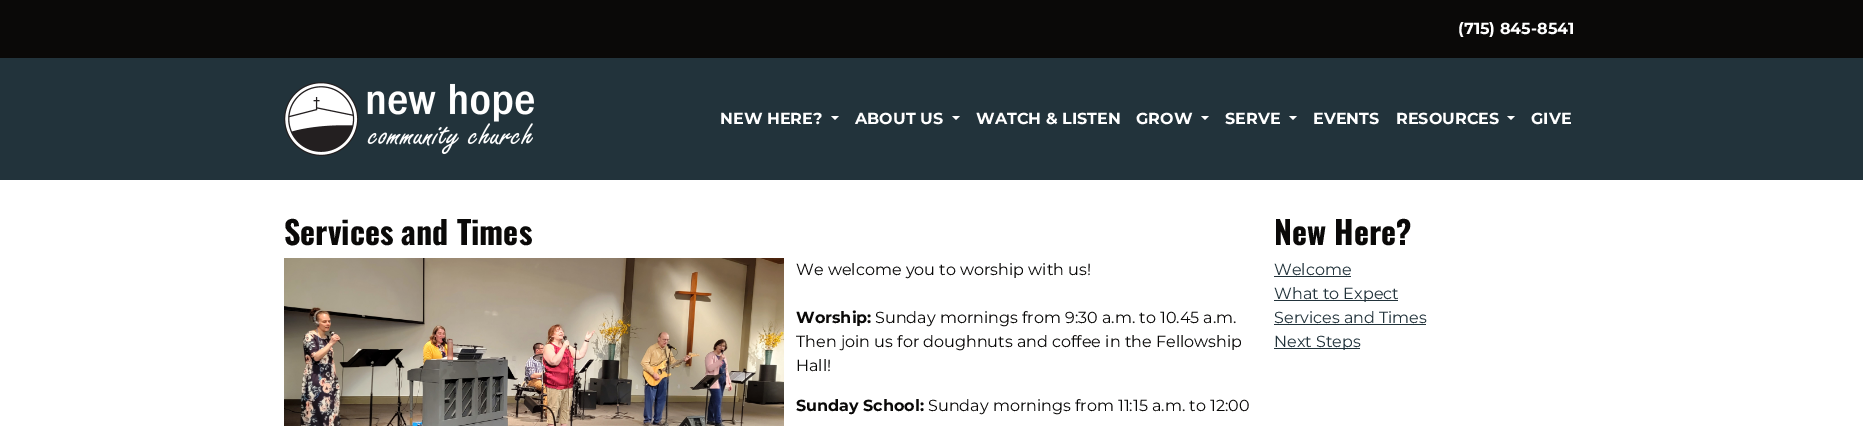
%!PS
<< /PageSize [1863 426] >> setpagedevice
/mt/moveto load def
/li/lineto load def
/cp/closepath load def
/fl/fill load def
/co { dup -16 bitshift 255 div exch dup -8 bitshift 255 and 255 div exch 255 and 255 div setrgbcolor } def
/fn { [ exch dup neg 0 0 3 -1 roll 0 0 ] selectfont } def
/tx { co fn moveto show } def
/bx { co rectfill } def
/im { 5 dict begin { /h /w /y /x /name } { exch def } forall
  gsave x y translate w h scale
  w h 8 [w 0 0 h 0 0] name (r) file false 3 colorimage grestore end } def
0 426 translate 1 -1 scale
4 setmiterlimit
0 0 1863 426 16#FFFFFF bx
0 0 1863 58 16#0A0908 bx
0 58 1863 122 16#22333B bx
(media/1.raw) 284 82 250 74 im
16#FFFFFF co
831 116 mt 839 116 li 835 120 li cp fl
952 116 mt 960 116 li 956 120 li cp fl
1201 116 mt 1209 116 li 1205 120 li cp fl
1289 116 mt 1297 116 li 1293 120 li cp fl
1507 116 mt 1515 116 li 1511 120 li cp fl
(media/2.raw) 284 258 500 168 im
1274 276 77 1 16#22333B bx
1274 300 124 1 16#22333B bx
1274 324 152 1 16#22333B bx
1274 348 86 1 16#22333B bx
(\(715\) 845-8541) 1458 34 /Montserrat-Bold 16 16#FFFFFF tx
(NEW HERE?) 720 124 /Montserrat-Bold 16 16#FFFFFF tx
(ABOUT US) 855 124 /Montserrat-Bold 16 16#FFFFFF tx
(WATCH & LISTEN) 976 124 /Montserrat-Bold 16 16#FFFFFF tx
(GROW) 1136 124 /Montserrat-Bold 16 16#FFFFFF tx
(SERVE) 1225 124 /Montserrat-Bold 16 16#FFFFFF tx
(EVENTS) 1313 124 /Montserrat-Bold 16 16#FFFFFF tx
(RESOURCES) 1396 124 /Montserrat-Bold 16 16#FFFFFF tx
(GIVE) 1531 124 /Montserrat-Bold 16 16#FFFFFF tx
(Services and Times) 284 245 /Oswald-Bold 32 16#0A0908 tx
(We welcome you to worship with us!) 796 275 /Montserrat-Regular 16 16#0A0908 tx
(Worship:) 796 323 /Montserrat-Bold 16 16#0A0908 tx
(Sunday mornings from 9:30 a.m. to 10.45 a.m.) 875 323 /Montserrat-Regular 16 16#0A0908 tx
(Then join us for doughnuts and coffee in the Fellowship) 796 347 /Montserrat-Regular 16 16#0A0908 tx
(Hall!) 796 371 /Montserrat-Regular 16 16#0A0908 tx
(Sunday School:) 796 411 /Montserrat-Bold 16 16#0A0908 tx
(Sunday mornings from 11:15 a.m. to 12:00) 928 411 /Montserrat-Regular 16 16#0A0908 tx
(New Here?) 1274 245 /Oswald-Bold 32 16#0A0908 tx
(Welcome) 1274 275 /Montserrat-Regular 16 16#22333B tx
(What to Expect) 1274 299 /Montserrat-Regular 16 16#22333B tx
(Services and Times) 1274 323 /Montserrat-Regular 16 16#22333B tx
(Next Steps) 1274 347 /Montserrat-Regular 16 16#22333B tx
showpage
